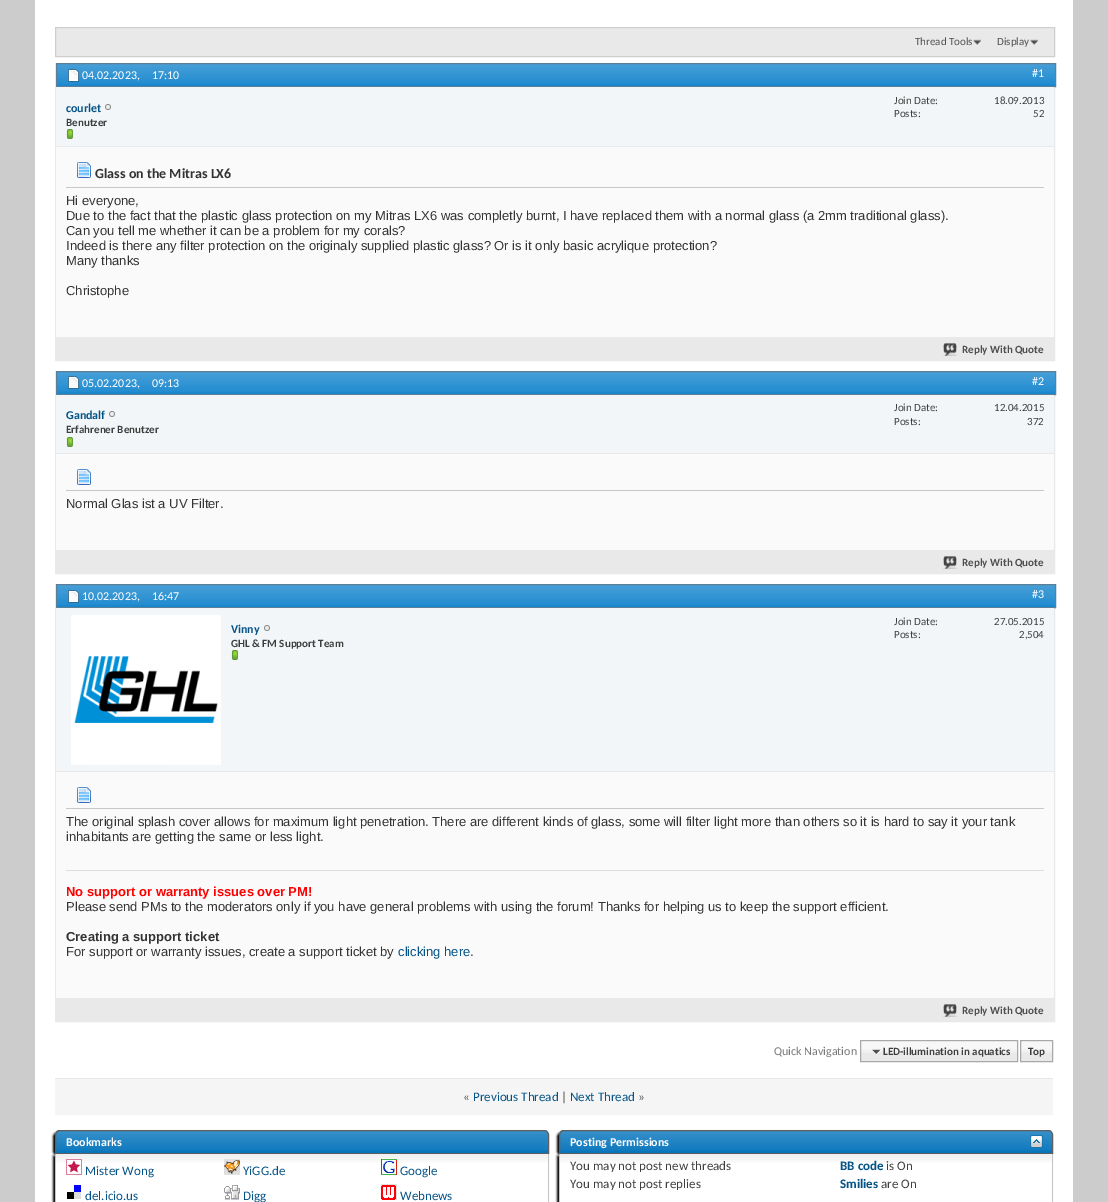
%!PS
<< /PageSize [1108 1202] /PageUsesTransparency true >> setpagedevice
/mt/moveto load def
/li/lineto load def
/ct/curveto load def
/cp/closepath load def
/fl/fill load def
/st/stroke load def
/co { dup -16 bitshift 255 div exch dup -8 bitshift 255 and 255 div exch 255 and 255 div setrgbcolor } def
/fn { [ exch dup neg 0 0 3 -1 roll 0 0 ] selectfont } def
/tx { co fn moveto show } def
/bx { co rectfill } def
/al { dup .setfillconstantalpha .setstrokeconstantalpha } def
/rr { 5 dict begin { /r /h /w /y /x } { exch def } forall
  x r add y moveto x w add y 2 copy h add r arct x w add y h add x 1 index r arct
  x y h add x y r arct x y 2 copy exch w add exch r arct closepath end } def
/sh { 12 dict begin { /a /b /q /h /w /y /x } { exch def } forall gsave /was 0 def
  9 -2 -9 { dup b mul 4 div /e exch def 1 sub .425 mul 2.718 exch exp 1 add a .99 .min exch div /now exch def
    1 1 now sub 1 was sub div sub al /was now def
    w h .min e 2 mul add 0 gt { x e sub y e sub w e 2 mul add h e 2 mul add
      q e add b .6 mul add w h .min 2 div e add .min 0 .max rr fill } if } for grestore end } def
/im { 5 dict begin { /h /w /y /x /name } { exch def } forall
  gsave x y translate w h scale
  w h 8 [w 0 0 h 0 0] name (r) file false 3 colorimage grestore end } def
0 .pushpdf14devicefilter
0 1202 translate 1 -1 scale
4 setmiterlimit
0 0 1108 1202 16#CCCCCC bx
35 0 1038 1202 16#FFFFFF bx
56 29 998 27 16#E9E9E9 bx
55 28 1000 1 16#EDEDED bx
16#CECECE co
55.5 27.5 999 29 rectstroke
(media/1.raw) 973 39 9 7 im
(media/1.raw) 1030 39 9 7 im
16#E9E9E9 co
55.5 63.5 999 297 rectstroke
57 64 998 22 16#1B88CE bx
(media/2.raw) 57 64 998 20 im
16#5A7F97 co
56.5 63.5 999 23 rectstroke
(media/3.raw) 68 69 11 13 im
56 87 998 59 16#F2F6F8 bx
56 146 998 1 16#E9E9E9 bx
(media/4.raw) 105 104 6 6 im
(media/5.raw) 66 129 7 10 im
56 147 998 190 16#FAFAFA bx
66 187 978 1 16#C8C8C8 bx
(media/6.raw) 77 162 14 16 im
56 337 998 23 16#E9E9E9 bx
(media/7.raw) 943 343 14 13 im
55.5 371.5 999 202 rectstroke
57 372 998 22 16#1B88CE bx
(media/2.raw) 57 372 998 20 im
16#5A7F97 co
56.5 371.5 999 23 rectstroke
(media/8.raw) 68 376 11 13 im
56 395 998 58 16#F2F6F8 bx
56 453 998 1 16#E9E9E9 bx
(media/4.raw) 109 411 6 6 im
(media/5.raw) 66 437 7 10 im
56 454 998 96 16#FAFAFA bx
66 490 978 1 16#C8C8C8 bx
(media/6.raw) 77 469 14 16 im
56 550 998 23 16#E9E9E9 bx
(media/7.raw) 943 556 14 13 im
55.5 584.5 999 437 rectstroke
57 585 998 22 16#1B88CE bx
(media/2.raw) 57 585 998 20 im
16#5A7F97 co
56.5 584.5 999 23 rectstroke
(media/3.raw) 68 590 11 13 im
56 608 998 163 16#F2F6F8 bx
56 771 998 1 16#E9E9E9 bx
(media/9.raw) 71 615 150 150 im
(media/4.raw) 264 625 6 6 im
(media/5.raw) 231 650 7 10 im
56 772 998 226 16#FAFAFA bx
66 808 978 1 16#C8C8C8 bx
(media/6.raw) 77 787 14 16 im
66 870 978 1 16#DDDDDD bx
56 998 998 23 16#E9E9E9 bx
(media/7.raw) 943 1004 14 13 im
861 1041 156 20 16#E9E9E9 bx
(media/10.raw) 861 1041 156 12 im
1021 1041 31 20 16#E9E9E9 bx
(media/11.raw) 1021 1041 31 12 im
16#A8A8A8 co
860.5 1040.5 157 21 rectstroke
(media/12.raw) 872 1049 9 6 im
1020.5 1040.5 32 21 rectstroke
55 1079 998 36 16#F5F5F5 bx
55 1078 998 1 16#E7E7E7 bx
16#000000 co
53 1132 494 24 5 1 1 sh
16#0775BC co
60 1130 mt 544 1130 li 547 1130 549 1132 549 1135 ct 549 1154 li 55 1154 li 55 1135 li 55 1132 57 1130 60 1130 ct cp fl
(media/13.raw) 55 1131 494 20 im
16#606060 co
60 1130.5 mt 544 1130.5 li 546.5 1130.5 548.5 1132.5 548.5 1135 ct 548.5 1153.5 li 55.5 1153.5 li 55.5 1135 li 55.5 1132.5 57.5 1130.5 60 1130.5 ct cp st
16#000000 co
53 1156 494 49 0 1 1 sh
56 1154 492 48 16#FFFFFF bx
(media/14.raw) 56 1154 492 9 im
548 1154 1 48 16#C4C4C4 bx
55 1154 1 48 16#C4C4C4 bx
(media/15.raw) 66 1159 16 16 im
(media/16.raw) 224 1159 16 16 im
(media/17.raw) 381 1159 16 16 im
(media/18.raw) 67 1185 14 14 im
(media/19.raw) 224 1185 16 15 im
(media/20.raw) 381 1184 16 16 im
16#000000 co
557 1132 494 24 5 1 1 sh
16#0775BC co
564 1130 mt 1048 1130 li 1051 1130 1053 1132 1053 1135 ct 1053 1154 li 559 1154 li 559 1135 li 559 1132 561 1130 564 1130 ct cp fl
(media/13.raw) 559 1131 494 20 im
16#606060 co
564 1130.5 mt 1048 1130.5 li 1050.5 1130.5 1052.5 1132.5 1052.5 1135 ct 1052.5 1153.5 li 559.5 1153.5 li 559.5 1135 li 559.5 1132.5 561.5 1130.5 564 1130.5 ct cp st
(media/21.raw) 1030 1135 13 13 im
16#000000 co
557 1156 494 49 0 1 1 sh
560 1154 492 48 16#FFFFFF bx
(media/14.raw) 560 1154 492 9 im
1052 1154 1 48 16#C4C4C4 bx
559 1154 1 48 16#C4C4C4 bx
(Thread Tools) 915 45 /Carlito-Regular 11 16#4E4E4E tx
(Display) 997 45 /Carlito-Regular 11 16#4E4E4E tx
(04.02.2023,) 82 79 /Carlito-Regular 12 16#FFFFFF tx
(17:10) 152 79 /Carlito-Regular 12 16#FFFFFF tx
(#1) 1032 77 /Carlito-Regular 12 16#FFFFFF tx
(courlet) 66 112 /Carlito-Bold 12 16#055386 tx
(Benutzer) 66 126 /Carlito-Bold 11 16#3E3E3E tx
(Join Date:) 894 104 /Carlito-Regular 11 16#3E3E3E tx
(18.09.2013) 994 104 /Carlito-Regular 11 16#3E3E3E tx
(Posts:) 894 117 /Carlito-Regular 11 16#3E3E3E tx
(52) 1033 117 /Carlito-Regular 11 16#3E3E3E tx
(Glass on the Mitras LX6) 95 178 /Carlito-Bold 14 16#333333 tx
(Hi everyone,) 66 205 /LiberationSans-Regular 13 16#333333 tx
(Due to the fact that the plastic glass protection on my Mitras LX6 was completly burnt, I have replaced them with a normal glass \(a 2mm traditional glass\).) 66 220 /LiberationSans-Regular 13 16#333333 tx
(Can you tell me whether it can be a problem for my corals?) 66 235 /LiberationSans-Regular 13 16#333333 tx
(Indeed is there any filter protection on the originaly supplied plastic glass? Or is it only basic acrylique protection?) 66 250 /LiberationSans-Regular 13 16#333333 tx
(Many thanks) 66 265 /LiberationSans-Regular 13 16#333333 tx
(Christophe) 66 295 /LiberationSans-Regular 13 16#333333 tx
(Reply With Quote) 962 353 /Carlito-Bold 11 16#4E4E4E tx
(05.02.2023,) 82 387 /Carlito-Regular 12 16#FFFFFF tx
(09:13) 152 387 /Carlito-Regular 12 16#FFFFFF tx
(#2) 1032 385 /Carlito-Regular 12 16#FFFFFF tx
(Gandalf) 66 419 /Carlito-Bold 12 16#055386 tx
(Erfahrener Benutzer) 66 433 /Carlito-Bold 11 16#3E3E3E tx
(Join Date:) 894 411 /Carlito-Regular 11 16#3E3E3E tx
(12.04.2015) 994 411 /Carlito-Regular 11 16#3E3E3E tx
(Posts:) 894 425 /Carlito-Regular 11 16#3E3E3E tx
(372) 1027 425 /Carlito-Regular 11 16#3E3E3E tx
(Normal Glas ist a UV Filter.) 66 508 /LiberationSans-Regular 13 16#333333 tx
(Reply With Quote) 962 566 /Carlito-Bold 11 16#4E4E4E tx
(10.02.2023,) 82 600 /Carlito-Regular 12 16#FFFFFF tx
(16:47) 152 600 /Carlito-Regular 12 16#FFFFFF tx
(#3) 1032 598 /Carlito-Regular 12 16#FFFFFF tx
(Vinny) 231 633 /Carlito-Bold 12 16#055386 tx
(GHL & FM Support Team) 231 647 /Carlito-Bold 11 16#3E3E3E tx
(Join Date:) 894 625 /Carlito-Regular 11 16#3E3E3E tx
(27.05.2015) 994 625 /Carlito-Regular 11 16#3E3E3E tx
(Posts:) 894 638 /Carlito-Regular 11 16#3E3E3E tx
(2,504) 1019 638 /Carlito-Regular 11 16#3E3E3E tx
(The original splash cover allows for maximum light penetration. There are different kinds of glass, some will filter light more than others so it is hard to say it your tank) 66 826 /LiberationSans-Regular 13 16#333333 tx
(inhabitants are getting the same or less light.) 66 841 /LiberationSans-Regular 13 16#333333 tx
(No support or warranty issues over PM!) 66 896 /LiberationSans-Bold 13 16#FF0000 tx
(Please send PMs to the moderators only if you have general problems with using the forum! Thanks for helping us to keep the support efficient.) 66 911 /LiberationSans-Regular 13 16#333333 tx
(Creating a support ticket) 66 941 /LiberationSans-Bold 13 16#333333 tx
(For support or warranty issues, create a support ticket by) 66 956 /LiberationSans-Regular 13 16#333333 tx
(clicking here) 398 956 /LiberationSans-Regular 13 16#055386 tx
(.) 470 956 /LiberationSans-Regular 13 16#333333 tx
(Reply With Quote) 962 1014 /Carlito-Bold 11 16#4E4E4E tx
(Quick Navigation) 774 1055 /Carlito-Regular 12 16#777777 tx
(LED-illumination in aquatics) 883 1055 /Carlito-Bold 11 16#3E3E3E tx
(Top) 1028 1055 /Carlito-Bold 11 16#3E3E3E tx
(«) 463 1101 /Carlito-Regular 13 16#5D5D5D tx
(Previous Thread) 473 1101 /Carlito-Regular 13 16#055386 tx
(|) 561 1101 /Carlito-Regular 13 16#5D5D5D tx
(Next Thread) 570 1101 /Carlito-Regular 13 16#055386 tx
(») 638 1101 /Carlito-Regular 13 16#5D5D5D tx
(Bookmarks) 66 1146 /Carlito-Bold 12 16#FFFFFF tx
(Mister Wong) 85 1175 /Carlito-Regular 13 16#055386 tx
(YiGG.de) 243 1175 /Carlito-Regular 13 16#055386 tx
(Google) 400 1175 /Carlito-Regular 13 16#055386 tx
(del.icio.us) 85 1200 /Carlito-Regular 13 16#055386 tx
(Digg) 243 1200 /Carlito-Regular 13 16#055386 tx
(Webnews) 400 1200 /Carlito-Regular 13 16#055386 tx
(Posting Permissions) 570 1146 /Carlito-Bold 12 16#FFFFFF tx
(You may not post new threads) 570 1170 /Carlito-Regular 13 16#3E3E3E tx
(You may not post replies) 570 1188 /Carlito-Regular 13 16#3E3E3E tx
(BB code) 840 1170 /Carlito-Bold 13 16#055386 tx
(is On) 886 1170 /Carlito-Regular 13 16#3E3E3E tx
(Smilies) 840 1188 /Carlito-Bold 13 16#055386 tx
(are On) 881 1188 /Carlito-Regular 13 16#3E3E3E tx
.poppdf14devicefilter showpage
